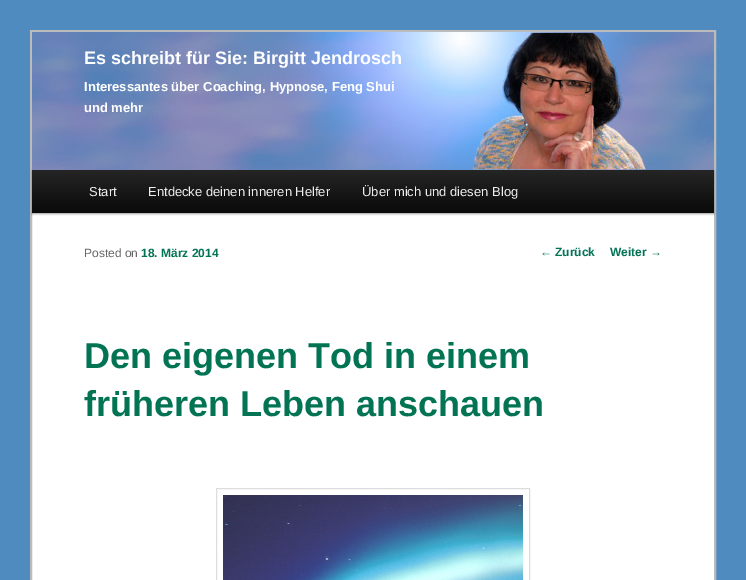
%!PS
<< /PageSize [746 580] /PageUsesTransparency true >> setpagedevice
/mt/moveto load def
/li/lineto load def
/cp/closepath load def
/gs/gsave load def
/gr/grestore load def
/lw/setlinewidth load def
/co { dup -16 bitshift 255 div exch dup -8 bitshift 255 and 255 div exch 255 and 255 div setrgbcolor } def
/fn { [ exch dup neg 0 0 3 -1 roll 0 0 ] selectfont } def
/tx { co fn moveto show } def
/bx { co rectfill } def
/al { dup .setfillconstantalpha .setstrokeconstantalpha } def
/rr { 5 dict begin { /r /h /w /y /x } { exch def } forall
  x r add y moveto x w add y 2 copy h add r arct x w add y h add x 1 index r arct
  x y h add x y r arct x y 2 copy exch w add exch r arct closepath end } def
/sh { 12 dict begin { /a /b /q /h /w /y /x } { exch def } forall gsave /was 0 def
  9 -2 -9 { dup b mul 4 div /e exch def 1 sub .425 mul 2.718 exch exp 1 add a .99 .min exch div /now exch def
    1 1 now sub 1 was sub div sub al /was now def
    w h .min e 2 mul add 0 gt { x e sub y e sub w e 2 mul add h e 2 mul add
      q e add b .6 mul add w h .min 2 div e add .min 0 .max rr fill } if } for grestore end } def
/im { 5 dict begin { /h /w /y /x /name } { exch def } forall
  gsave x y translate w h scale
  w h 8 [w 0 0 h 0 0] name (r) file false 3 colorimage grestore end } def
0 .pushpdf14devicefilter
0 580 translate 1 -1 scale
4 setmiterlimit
0 0 746 580 16#508BBF bx
32 213 682 367 16#FFFFFF bx
16#BBBBBB co
2 lw
31 31 684 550 rectstroke
16#000000 co
32 171 682 43 0 1 .4 sh
(media/1.raw) 32 32 682 138 im
gs 32 170 mt 714 170 li 714 213 li 32 213 li cp clip newpath
<< /ShadingType 2 /ColorSpace /DeviceRGB /Coords [373 170 373 213] /Extend [true true] /Function << /FunctionType 2 /Domain [0 1] /C0 [.145 .145 .145] /C1 [.039 .039 .039] /N 1 >> >> shfill gr
16#DDDDDD co
1 lw
216.5 488.5 313 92 rectstroke
(media/2.raw) 223 495 300 85 im
(Es schreibt für Sie: Birgitt Jendrosch) 84 64 /LiberationSans-Bold 18 16#FFFFFF tx
(Interessantes über Coaching, Hypnose, Feng Shui) 84 91 /LiberationSans-Bold 13 16#FFFFFF tx
(und mehr) 84 112 /LiberationSans-Bold 13 16#FFFFFF tx
(Start) 89 196 /LiberationSans-Regular 13 16#EEEEEE tx
(Entdecke deinen inneren Helfer) 148 196 /LiberationSans-Regular 13 16#EEEEEE tx
(Über mich und diesen Blog) 362 196 /LiberationSans-Regular 13 16#EEEEEE tx
(Posted on) 84 257 /LiberationSans-Regular 12 16#666666 tx
(18. März 2014) 141 257 /LiberationSans-Bold 12 16#027353 tx
(Den eigenen Tod in einem) 84 368 /LiberationSans-Bold 36 16#027353 tx
(früheren Leben anschauen) 84 416 /LiberationSans-Bold 36 16#027353 tx
(←) 540 256 /LiberationSans-Regular 12 16#027353 tx
(Zurück) 555 256 /LiberationSans-Bold 12 16#027353 tx
(Weiter) 610 256 /LiberationSans-Bold 12 16#027353 tx
(→) 650 256 /LiberationSans-Regular 12 16#027353 tx
.poppdf14devicefilter showpage
